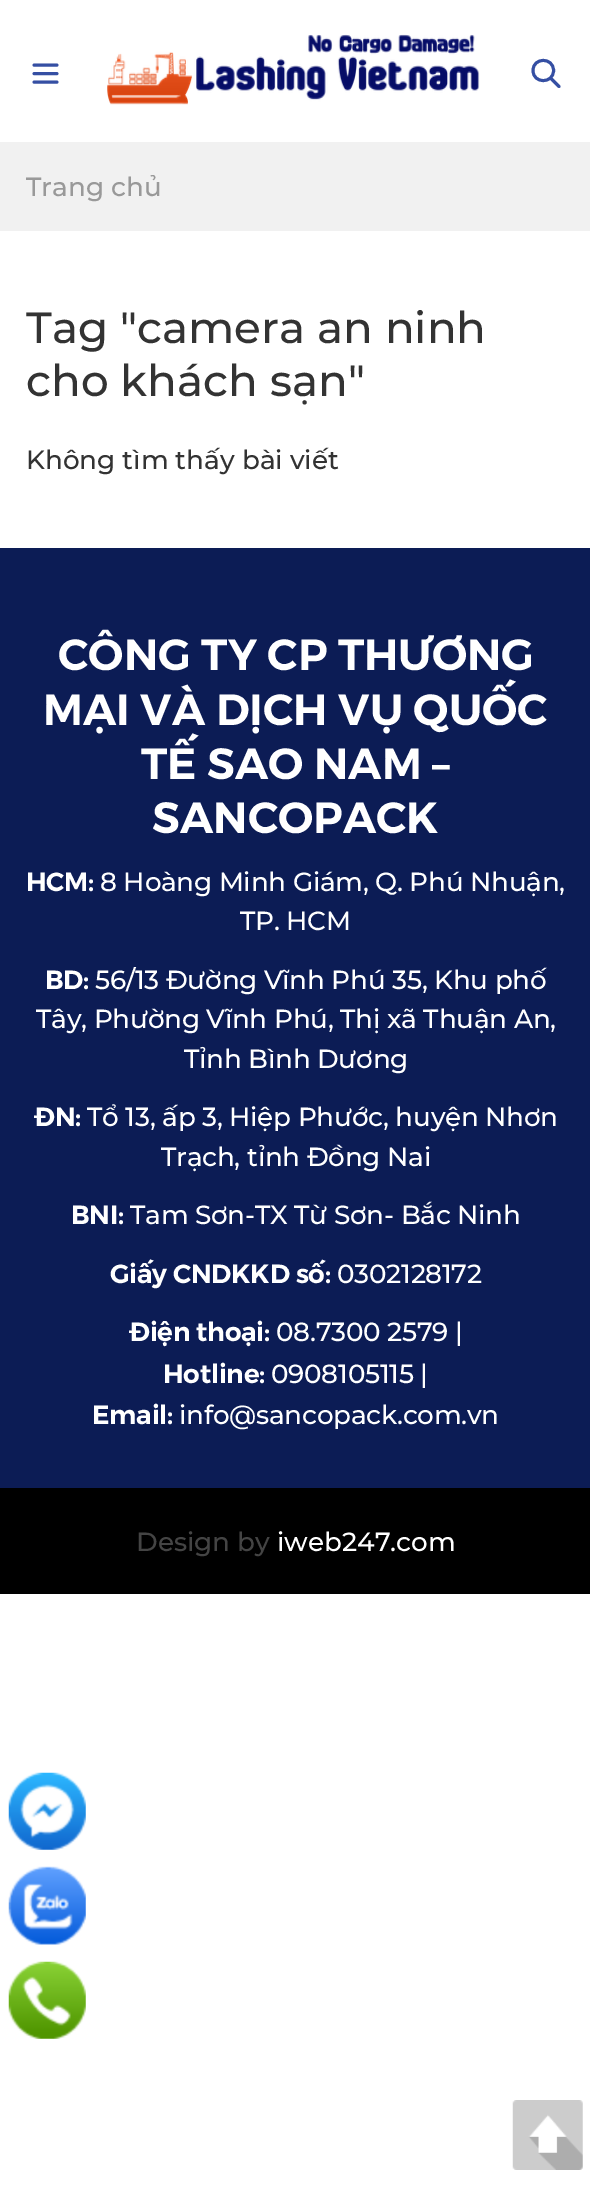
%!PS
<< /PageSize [590 2196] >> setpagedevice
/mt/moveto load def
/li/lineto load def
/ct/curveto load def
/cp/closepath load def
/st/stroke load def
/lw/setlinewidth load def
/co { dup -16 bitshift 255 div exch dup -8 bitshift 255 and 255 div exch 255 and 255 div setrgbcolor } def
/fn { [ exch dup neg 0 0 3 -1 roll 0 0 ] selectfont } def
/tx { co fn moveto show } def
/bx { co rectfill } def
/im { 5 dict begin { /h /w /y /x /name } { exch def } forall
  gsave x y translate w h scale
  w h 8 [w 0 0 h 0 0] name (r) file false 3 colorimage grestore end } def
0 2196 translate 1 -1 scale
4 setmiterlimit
0 0 590 2196 16#FFFFFF bx
16#354FA3 co
2.9 lw
1 setlinecap
1 setlinejoin
34 65 mt 57 65 li 34 73.5 mt 57 73.5 li 34 82 mt 57 82 li st
(media/1.raw) 107 34 373 71 im
559 86.5 mt 550.5 78 li 553.5 70.5 mt 553.5 84 533 84 533 70.5 ct 533 57 553.5 57 553.5 70.5 ct cp st
0 142 590 89 16#F1F1F1 bx
0 548 590 940 16#0C1C55 bx
0 1488 590 106 16#000000 bx
(media/2.raw) 8 1772 78 78 im
(media/3.raw) 8 1866 78 79 im
(media/4.raw) 8 1961 78 78 im
(media/5.raw) 512 2100 71 70 im
(Trang chủ) 26 196 /Montserrat-Medium 26.25 16#999999 tx
(Tag "camera an ninh) 26 343 /Montserrat-Medium 43.75 16#333333 tx
(cho khách sạn") 26 396 /Montserrat-Medium 43.75 16#333333 tx
(Không tìm thấy bài viết) 26 469 /Montserrat-Medium 26.25 16#333333 tx
(CÔNG TY CP THƯƠNG) 58 670 /Montserrat-SemiBold 43.75 16#FFFFFF tx
(MẠI VÀ DỊCH VỤ QUỐC) 43 725 /Montserrat-SemiBold 43.75 16#FFFFFF tx
(TẾ SAO NAM –) 141 779 /Montserrat-SemiBold 43.75 16#FFFFFF tx
(SANCOPACK) 152 833 /Montserrat-SemiBold 43.75 16#FFFFFF tx
/Montserrat-SemiBold 26.25 fn
26 891 mt -.25 0 (HCM:) ashow
/Montserrat-Medium 26.25 fn
100 891 mt -.25 0 (8 Hoàng Minh Giám, Q. Phú Nhuận,) ashow
240 930 mt -.25 0 (TP. HCM) ashow
/Montserrat-SemiBold 26.25 fn
45 989 mt -.25 0 (BD:) ashow
/Montserrat-Medium 26.25 fn
95 989 mt -.25 0 (56/13 Đường Vĩnh Phú 35, Khu phố) ashow
36 1028 mt -.25 0 (Tây, Phường Vĩnh Phú, Thị xã Thuận An,) ashow
184 1068 mt -.25 0 (Tỉnh Bình Dương) ashow
/Montserrat-SemiBold 26.25 fn
34 1126 mt -.25 0 (ĐN:) ashow
/Montserrat-Medium 26.25 fn
87 1126 mt -.25 0 (Tổ 13, ấp 3, Hiệp Phước, huyện Nhơn) ashow
161 1166 mt -.25 0 (Trạch, tỉnh Đồng Nai) ashow
/Montserrat-SemiBold 26.25 fn
71 1224 mt -.25 0 (BNI:) ashow
/Montserrat-Medium 26.25 fn
130 1224 mt -.25 0 (Tam Sơn-TX Từ Sơn- Bắc Ninh) ashow
/Montserrat-SemiBold 26.25 fn
110 1283 mt -.25 0 (Giấy CNDKKD số:) ashow
/Montserrat-Medium 26.25 fn
337 1283 mt -.25 0 (0302128172) ashow
/Montserrat-SemiBold 26.25 fn
129 1341 mt -.25 0 (Điện thoại:) ashow
/Montserrat-Medium 26.25 fn
276 1341 mt -.25 0 (08.7300 2579 |) ashow
/Montserrat-SemiBold 26.25 fn
163 1383 mt -.25 0 (Hotline:) ashow
/Montserrat-Medium 26.25 fn
271 1383 mt -.25 0 (0908105115 |) ashow
/Montserrat-SemiBold 26.25 fn
92 1424 mt -.25 0 (Email:) ashow
/Montserrat-Medium 26.25 fn
179 1424 mt -.25 0 (info@sancopack.com.vn) ashow
(Design by) 136 1551 /Montserrat-Medium 26.25 16#444444 tx
(iweb247.com) 277 1551 /Montserrat-Medium 26.25 16#FFFFFF tx
showpage
